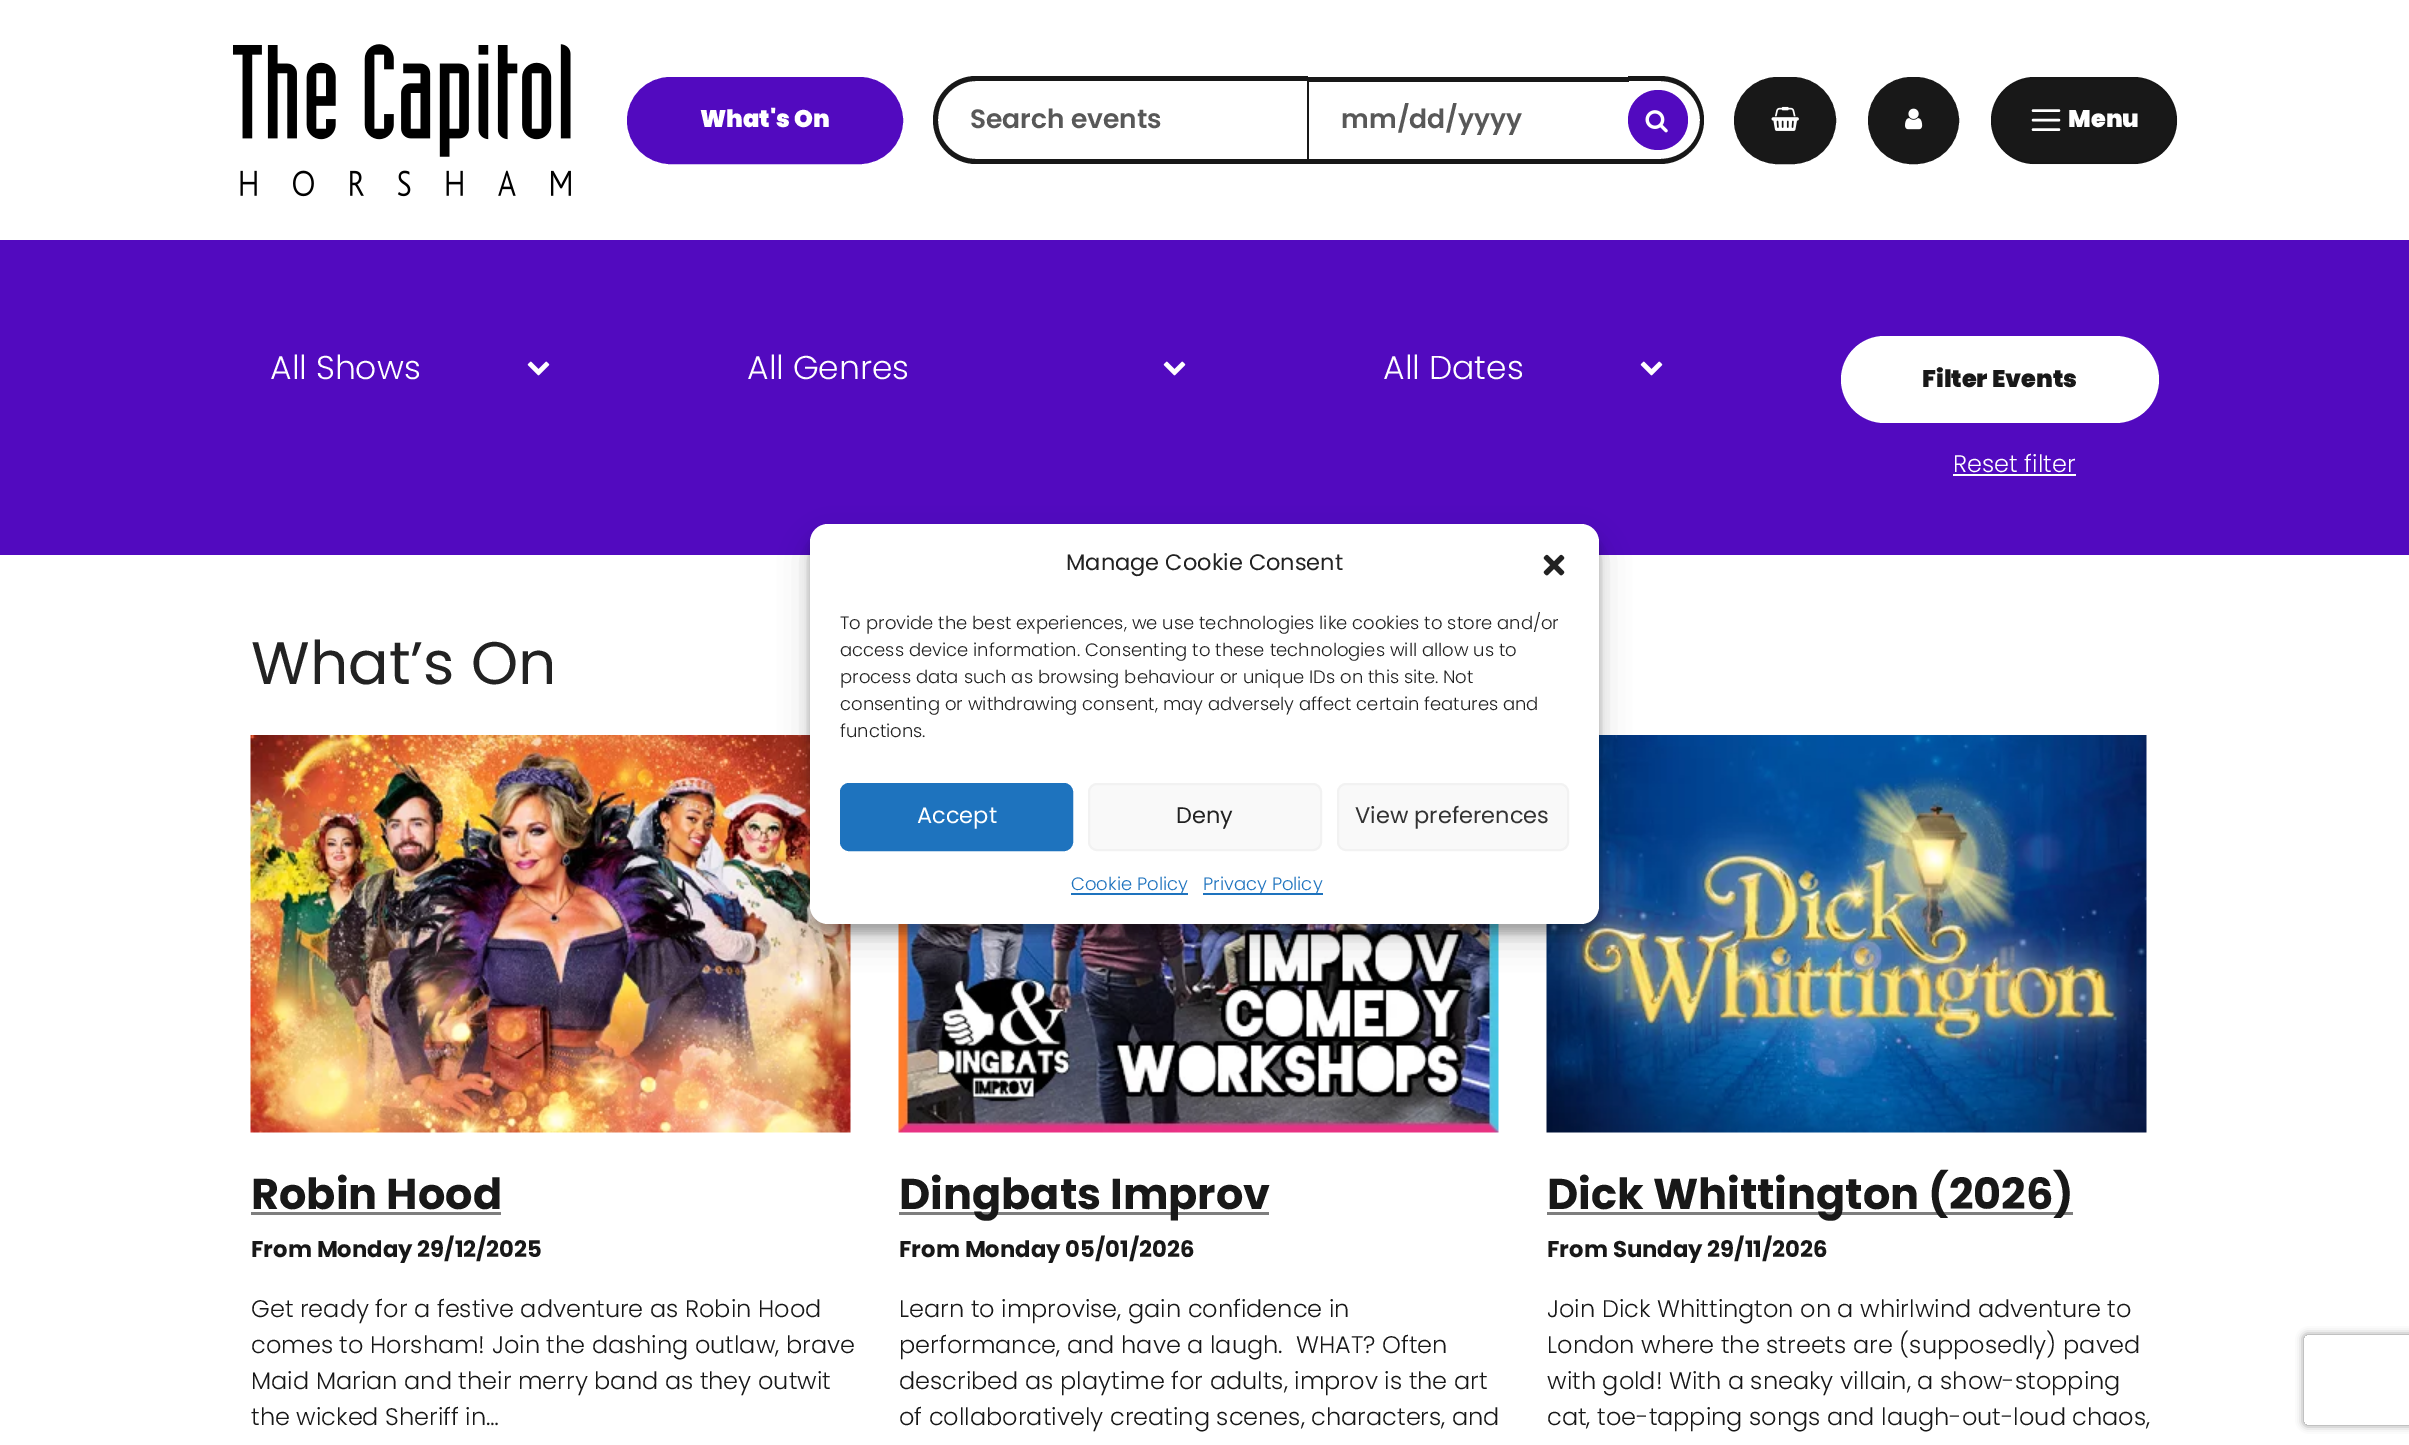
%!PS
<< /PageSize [2409 1445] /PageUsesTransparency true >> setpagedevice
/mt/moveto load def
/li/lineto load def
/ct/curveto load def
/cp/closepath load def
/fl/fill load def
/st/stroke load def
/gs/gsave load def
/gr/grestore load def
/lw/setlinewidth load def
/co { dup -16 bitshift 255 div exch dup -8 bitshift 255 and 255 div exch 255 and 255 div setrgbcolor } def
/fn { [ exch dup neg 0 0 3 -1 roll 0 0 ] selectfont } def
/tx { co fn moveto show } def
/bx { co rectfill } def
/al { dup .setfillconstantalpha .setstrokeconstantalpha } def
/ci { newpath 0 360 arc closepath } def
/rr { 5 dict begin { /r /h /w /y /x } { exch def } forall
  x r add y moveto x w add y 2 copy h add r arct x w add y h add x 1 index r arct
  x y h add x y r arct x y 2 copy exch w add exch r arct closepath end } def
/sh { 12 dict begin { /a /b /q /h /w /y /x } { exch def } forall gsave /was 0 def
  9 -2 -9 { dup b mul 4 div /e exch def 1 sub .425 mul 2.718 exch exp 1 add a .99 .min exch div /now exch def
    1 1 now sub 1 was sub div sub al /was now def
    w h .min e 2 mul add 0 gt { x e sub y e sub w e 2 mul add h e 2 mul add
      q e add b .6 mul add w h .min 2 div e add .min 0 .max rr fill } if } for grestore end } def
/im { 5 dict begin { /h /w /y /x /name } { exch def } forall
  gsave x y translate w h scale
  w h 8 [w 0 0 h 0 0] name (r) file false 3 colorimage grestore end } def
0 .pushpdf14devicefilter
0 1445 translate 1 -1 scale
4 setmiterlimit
0 0 2409 1445 16#FFFFFF bx
(media/1.raw) 233 44 338 153 im
16#520ABF co
628 78 274 85 42.5 rr gs fl gr
2 lw
st
16#181818 co
976 76 mt 1308 76 li 1308 164 li 976 164 li 952 164 933 144 933 120 ct 933 96 952 76 976 76 ct cp 976 81 mt 1308 81 li 1308 159 li 976 159 li 955 159 938 142 938 120 ct 938 98 955 81 976 81 ct cp eofill
1628 76 mt 1660 76 li 1685 76 1704 96 1704 120 ct 1704 144 1685 164 1660 164 ct 1628 164 li cp 1628 81 mt 1660 81 li 1682 81 1700 98 1700 120 ct 1700 142 1682 159 1660 159 ct 1628 159 li cp eofill
1307 77 322 5 16#181818 bx
1307 159 322 5 16#181818 bx
1307 77 2 87 16#181818 bx
16#520ABF co
1658 120 30 ci fl
(media/2.raw) 1645 110 23 23 im
16#181818 co
1735 78 100 85 42.5 rr gs fl gr
st
(media/3.raw) 1771 106 28 25 im
1869 78 89 85 42.5 rr gs fl gr
st
(media/4.raw) 1905 108 18 22 im
1991 77 186 87 43.5 rr fl
0.1 al
16#000000 co
1992 78 184 85 42.5 rr st
1 al
16#FFFFFF co
2.4 lw
1 setlinecap
2033 110.5 mt 2059 110.5 li 2033 120 mt 2059 120 li 2033 129.5 mt 2059 129.5 li st
0 240 2409 315 16#520ABF bx
(media/5.raw) 527 361 23 15 im
(media/5.raw) 1163 361 23 15 im
(media/5.raw) 1640 361 23 15 im
16#FFFFFF co
1841 336 318 87 43.5 rr fl
1953 474 123 2 16#FFFFFF bx
(media/6.raw) 250 735 601 398 im
251 1212 250 3 16#7E7E7E bx
(media/7.raw) 898 924 601 209 im
899 1212 370 3 16#7E7E7E bx
(media/8.raw) 1546 735 601 398 im
1547 1212 526 3 16#7E7E7E bx
16#000000 co
810 533 789 400 18 4.5 .23 sh
810 539 789 400 18 15 .19 sh
16#FFFFFF co
810 524 789 400 18 rr fl
(media/9.raw) 1543 554 22 22 im
16#1E73BE co
841 784 231 66 8 rr gs fl gr
2 lw
0 setlinecap
st
16#F9F9F9 co
1089 784 232 66 8 rr gs fl gr
16#F2F2F2 co
st
16#F9F9F9 co
1338 784 230 66 8 rr gs fl gr
16#F2F2F2 co
st
1071 893 117 2 16#1E73BE bx
1203 893 120 2 16#1E73BE bx
gs
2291 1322 mt 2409 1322 li 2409 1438 li 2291 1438 li cp 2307 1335 mt 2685 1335 li 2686.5 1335 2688 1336.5 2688 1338 ct 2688 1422 li 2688 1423.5 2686.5 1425 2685 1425 ct 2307 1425 li 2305.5 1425 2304 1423.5 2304 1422 ct 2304 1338 li 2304 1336.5 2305.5 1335 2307 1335 ct cp eoclip newpath
16#808080 co
2304 1335 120 90 3 4 1 sh
gr
(What's On) 700 127 /Poppins-Black 24 16#FFFFFF tx
(Search events) 970 128 /Poppins-SemiBold 26.5 16#585858 tx
(mm/dd/yyyy) 1341 128 /Poppins-SemiBold 26.5 16#585858 tx
(Menu) 2068 127 /Poppins-Black 24 16#FFFFFF tx
(All Shows) 270 379 /Poppins-Light 33 16#FFFFFF tx
(All Genres) 747 379 /Poppins-Light 33 16#FFFFFF tx
(All Dates) 1383 379 /Poppins-Light 33 16#FFFFFF tx
(Filter Events) 1922 387 /Poppins-Black 24 16#181818 tx
(Reset filter) 1953 472 /Poppins-Light 24 16#FFFFFF tx
(What’s On) 251 684 /Poppins-Regular 60 16#222222 tx
(Robin Hood) 251 1209 /Poppins-Bold 43 16#181818 tx
(From Monday 29/12/2025) 251 1257 /Poppins-Bold 22.75 16#181818 tx
(Get ready for a festive adventure as Robin Hood) 251 1317 /Poppins-Light 24 16#181818 tx
(comes to Horsham! Join the dashing outlaw, brave) 251 1353 /Poppins-Light 24 16#181818 tx
(Maid Marian and their merry band as they outwit) 251 1389 /Poppins-Light 24 16#181818 tx
(the wicked Sheriff in…) 251 1425 /Poppins-Light 24 16#181818 tx
(Dingbats Improv) 899 1209 /Poppins-Bold 43 16#181818 tx
(From Monday 05/01/2026) 899 1257 /Poppins-Bold 22.75 16#181818 tx
(Learn to improvise, gain confidence in) 899 1317 /Poppins-Light 24 16#181818 tx
(performance, and have a laugh.  WHAT? Often) 899 1353 /Poppins-Light 24 16#181818 tx
(described as playtime for adults, improv is the art) 899 1389 /Poppins-Light 24 16#181818 tx
(of collaboratively creating scenes, characters, and) 899 1425 /Poppins-Light 24 16#181818 tx
(Dick Whittington \(2026\)) 1547 1209 /Poppins-Bold 43 16#181818 tx
(From Sunday 29/11/2026) 1547 1257 /Poppins-Bold 22.75 16#181818 tx
(Join Dick Whittington on a whirlwind adventure to) 1547 1317 /Poppins-Light 24 16#181818 tx
(London where the streets are \(supposedly\) paved) 1547 1353 /Poppins-Light 24 16#181818 tx
(with gold! With a sneaky villain, a show-stopping) 1547 1389 /Poppins-Light 24 16#181818 tx
(cat, toe-tapping songs and laugh-out-loud chaos,) 1547 1425 /Poppins-Light 24 16#181818 tx
(Manage Cookie Consent) 1066 570 /Poppins-Regular 22.5 16#222222 tx
(To provide the best experiences, we use technologies like cookies to store and/or) 840 629 /Poppins-Light 18 16#222222 tx
(access device information. Consenting to these technologies will allow us to) 840 656 /Poppins-Light 18 16#222222 tx
(process data such as browsing behaviour or unique IDs on this site. Not) 840 683 /Poppins-Light 18 16#222222 tx
(consenting or withdrawing consent, may adversely affect certain features and) 840 710 /Poppins-Light 18 16#222222 tx
(functions.) 840 737 /Poppins-Light 18 16#222222 tx
(Accept) 917 823 /Poppins-Regular 22.5 16#FFFFFF tx
(Deny) 1176 823 /Poppins-Regular 22.5 16#222222 tx
(View preferences) 1355 823 /Poppins-Regular 22.5 16#333333 tx
(Cookie Policy) 1071 890 /Poppins-Light 18 16#1E73BE tx
(Privacy Policy) 1203 890 /Poppins-Light 18 16#1E73BE tx
.poppdf14devicefilter showpage
